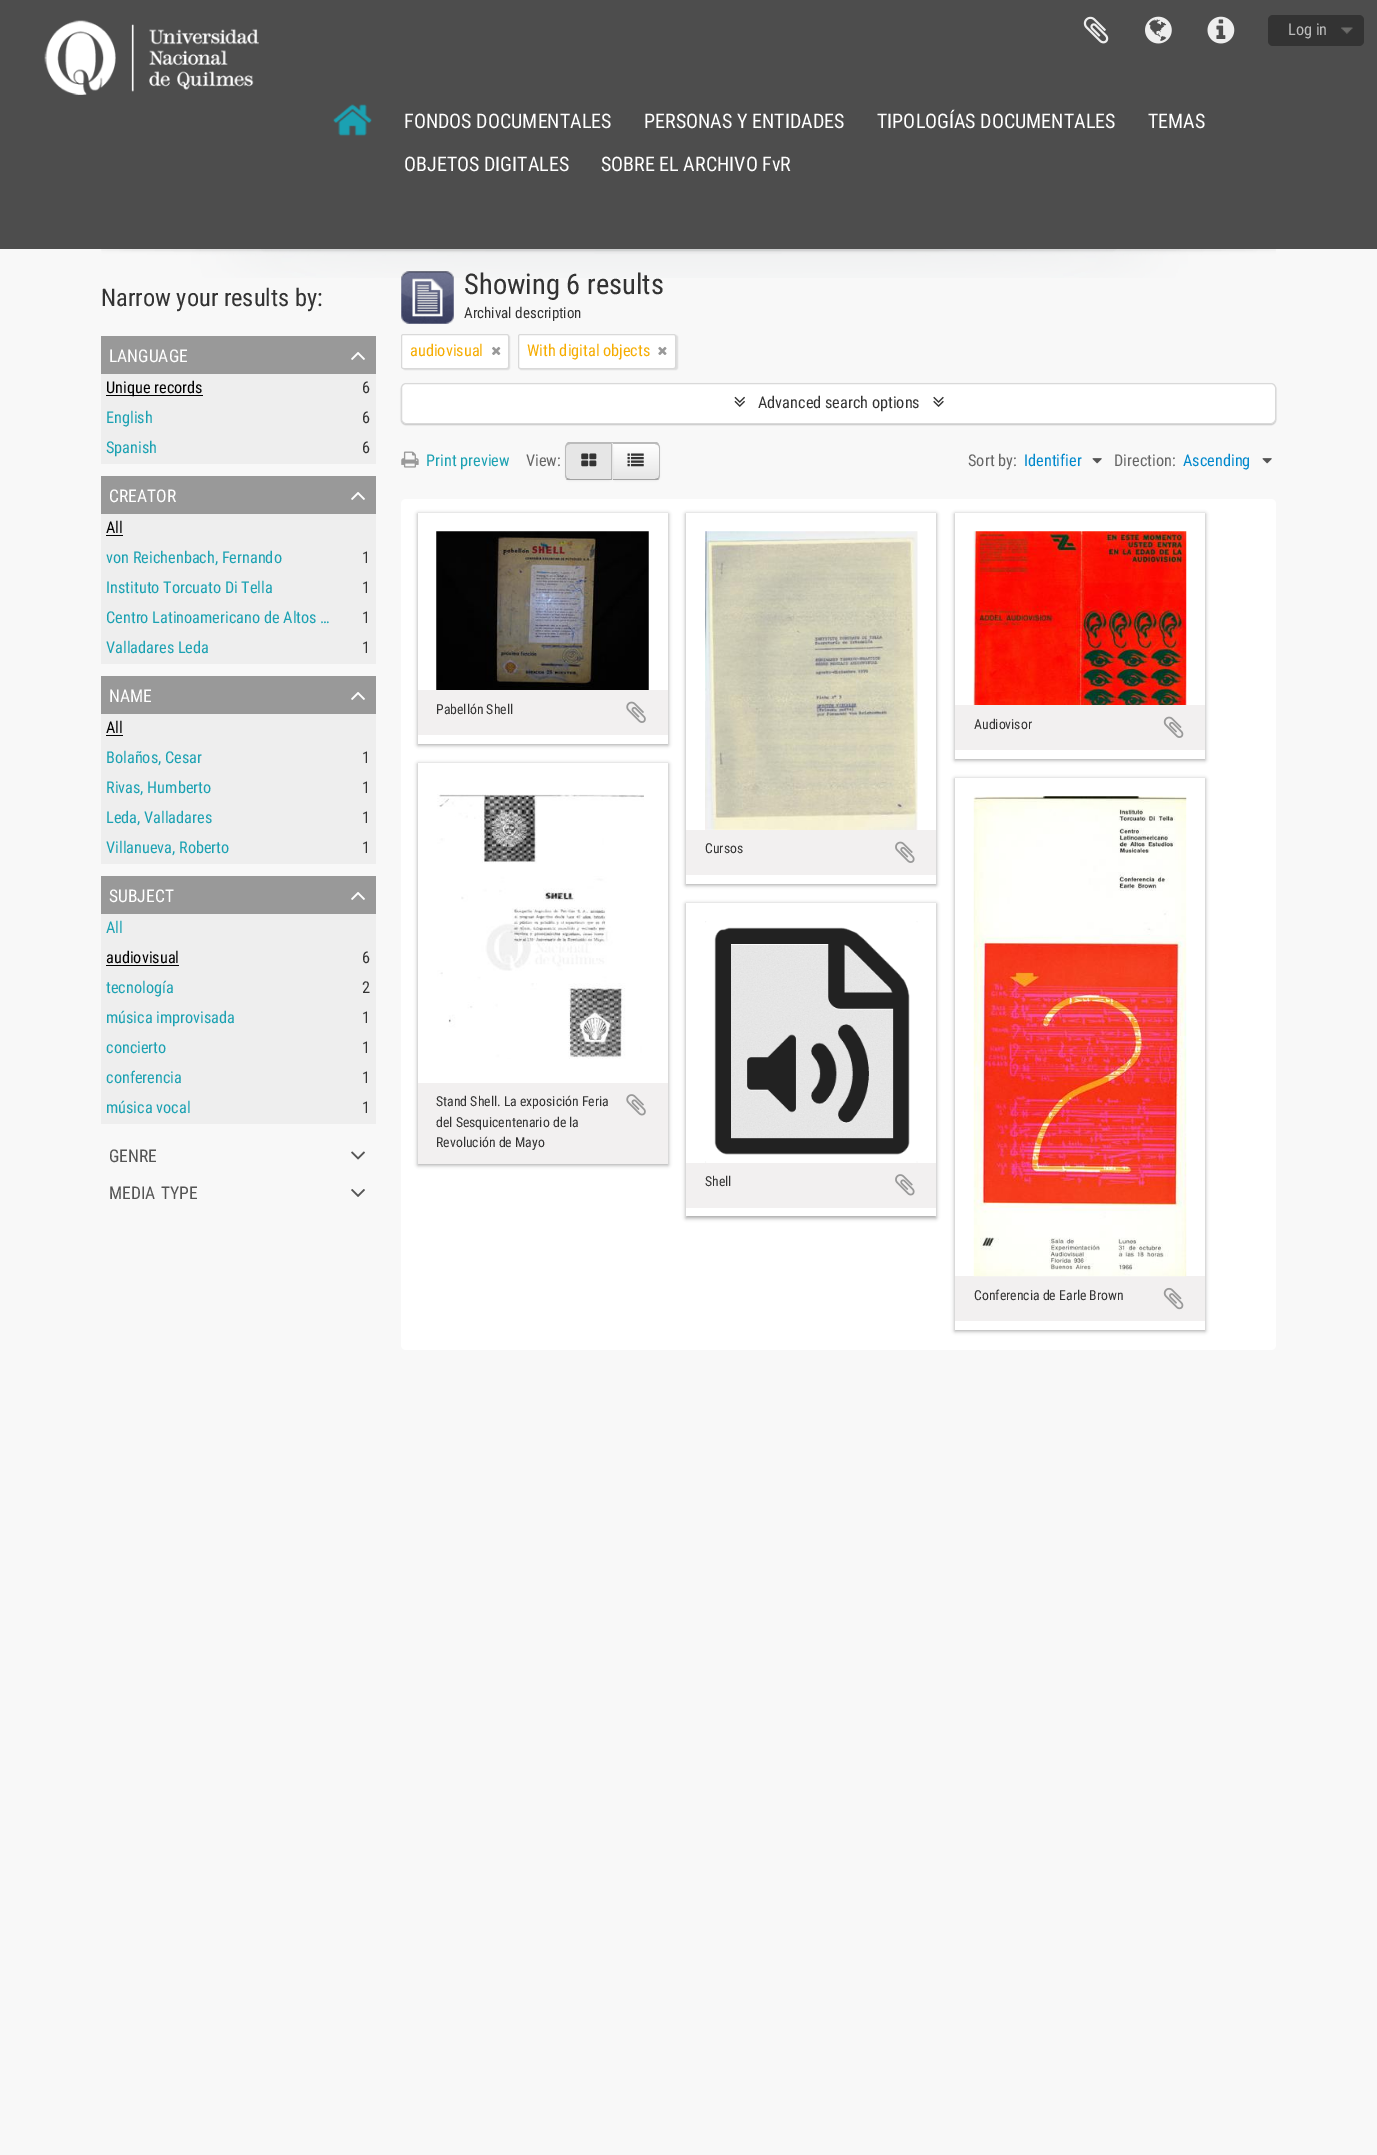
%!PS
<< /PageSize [1377 2155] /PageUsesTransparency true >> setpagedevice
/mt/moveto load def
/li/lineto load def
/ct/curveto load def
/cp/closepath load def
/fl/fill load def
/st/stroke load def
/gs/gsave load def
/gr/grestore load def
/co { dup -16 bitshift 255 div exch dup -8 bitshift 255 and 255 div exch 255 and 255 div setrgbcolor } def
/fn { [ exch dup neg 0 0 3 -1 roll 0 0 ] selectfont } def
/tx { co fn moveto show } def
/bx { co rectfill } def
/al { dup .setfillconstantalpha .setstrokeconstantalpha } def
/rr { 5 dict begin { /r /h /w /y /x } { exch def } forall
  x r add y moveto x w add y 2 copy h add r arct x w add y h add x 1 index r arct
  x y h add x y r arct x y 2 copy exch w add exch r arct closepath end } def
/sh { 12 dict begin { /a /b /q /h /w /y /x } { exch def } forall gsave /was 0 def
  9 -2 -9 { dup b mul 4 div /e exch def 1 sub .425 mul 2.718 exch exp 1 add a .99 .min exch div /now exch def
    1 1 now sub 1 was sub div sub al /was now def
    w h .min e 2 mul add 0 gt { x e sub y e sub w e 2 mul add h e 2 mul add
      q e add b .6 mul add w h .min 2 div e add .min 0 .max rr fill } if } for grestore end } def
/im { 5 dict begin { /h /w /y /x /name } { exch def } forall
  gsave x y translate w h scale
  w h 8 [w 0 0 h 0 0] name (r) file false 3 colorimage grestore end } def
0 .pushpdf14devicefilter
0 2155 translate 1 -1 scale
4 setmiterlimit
0 0 1377 2155 16#F8F8F8 bx
0 0 1377 249 16#4D4D4D bx
(media/1.raw) 44 20 215 75 im
(media/2.raw) 1083 16 26 28 im
(media/3.raw) 1145 16 27 28 im
(media/4.raw) 1207 16 28 28 im
16#333333 co
1268 15 96 31 5 rr fl
(media/5.raw) 1341 27 12 7 im
(media/6.raw) 333 104 39 32 im
(media/7.raw) 101 249 1175 29 im
101 336 275 38 16#999999 bx
(media/8.raw) 351 352 14 8 im
101 374 275 90 16#EEEEEE bx
106 395 97 1 16#000000 bx
101 476 275 38 16#999999 bx
(media/8.raw) 351 492 14 8 im
101 514 275 150 16#EEEEEE bx
106 535 17 1 16#000000 bx
101 676 275 38 16#999999 bx
(media/8.raw) 351 692 14 8 im
101 714 275 150 16#EEEEEE bx
106 735 17 1 16#000000 bx
101 876 275 38 16#999999 bx
(media/8.raw) 351 892 14 8 im
101 914 275 210 16#EEEEEE bx
106 965 73 1 16#000000 bx
(media/9.raw) 351 1151 14 9 im
(media/10.raw) 351 1189 14 8 im
(media/11.raw) 401 271 53 53 im
403 335 107 35 2.5 .5 .1 sh
16#FFFFFF co
401.5 334.5 107 34 2 rr gs fl gr
16#D9D9D9 co
st
(media/12.raw) 492 346 9 9 im
16#000000 co
519 335 159 35 2.5 .5 .1 sh
16#FFFFFF co
518.5 334.5 157 34 2 rr gs fl gr
16#D9D9D9 co
st
(media/13.raw) 658 346 9 9 im
16#000000 co
401 384 875 41 5 .5 .2 sh
16#FFFFFF co
401.5 383.5 874 40 4.5 rr gs fl gr
16#D9D9D9 co
st
(media/14.raw) 734 396 11 11 im
(media/15.raw) 933 396 11 11 im
(media/16.raw) 401 451 18 17 im
16#000000 co
611 444 49 37 5 1 .05 sh
gs
611 443 mt 655 443 li 658 443 660 445 660 448 ct 660 475 li 660 478 658 480 655 480 ct 611 480 li cp clip newpath
gs 613 444 mt 660 444 li 660 479 li 613 479 li cp clip newpath
<< /ShadingType 2 /ColorSpace /DeviceRGB /Coords [636 444 636 479] /Extend [true true] /Function << /FunctionType 2 /Domain [0 1] /C0 [1 1 1] /C1 [.902 .902 .902] /N 1 >> >> shfill gr
gr
16#BBBBBB co
611 442 mt 657 442 li 659 444 li 658 445 li 655 444 li 613 444 li cp fl
660 475 mt 660 448 li 660 446.5 659.5 445 658.5 444 ct 657.5 445 li 658.5 445.5 659 446.5 659 448 ct 659 475 li 659 476 658.5 477 658 478 ct 658.5 478.5 li 659.5 478 660 476.5 660 475 ct cp fl
16#A2A2A2 co
611 480 mt 655 480 li 656 480 658 480 659 479 ct 658 478 li 657 478 656 479 655 479 ct 612 479 li cp fl
16#000000 co
565 444 48 37 5 1 .05 sh
16#E6E6E6 co
570 443 mt 613 443 li 613 480 li 570 480 li 567 480 565 478 565 475 ct 565 448 li 565 445 567 443 570 443 ct cp fl
16#BBBBBB co
570 444 mt 567 445 li 566 444 li 568 442 li 612 442 li 611 444 li cp fl
612 443 mt 612 479.5 li 611 478.5 li 611 444 li cp fl
16#A2A2A2 co
570 480 mt 612 480 li 611 478 li 611 479 li 570 479 li 569 479 568 478 567 478 ct 566 479 li 567 480 568 480 570 480 ct cp fl
16#BBBBBB co
565 448 mt 565 475 li 565 476.5 565.5 478 566.5 478.5 ct 567 478 li 566.5 477 566 476 566 475 ct 566 448 li 566 446.5 566.5 445.5 567.5 445 ct 566.5 444 li 565.5 445 565 446.5 565 448 ct cp fl
(media/17.raw) 581 453 16 14 im
(media/18.raw) 627 453 17 14 im
(media/19.raw) 1092 458 10 6 im
(media/19.raw) 1262 458 10 6 im
16#FFFFFF co
401 499 875 851 5 rr fl
16#191919 co
418 514 250 231 0 2 .4 sh
418 513 250 231 16#FFFFFF bx
(media/20.raw) 436 531 213 159 im
418 690 250 45 16#F2F0F0 bx
(media/21.raw) 626 701 20 22 im
16#191919 co
955 514 250 246 0 2 .4 sh
955 513 250 246 16#FFFFFF bx
(media/22.raw) 973 531 214 174 im
955 705 250 45 16#F2F0F0 bx
(media/23.raw) 1163 716 21 22 im
16#191919 co
686 514 250 371 0 2 .4 sh
686 513 250 371 16#FFFFFF bx
(media/24.raw) 705 531 213 299 im
686 830 250 45 16#F2F0F0 bx
(media/25.raw) 895 841 20 22 im
16#191919 co
418 764 250 401 0 2 .4 sh
418 763 250 320 16#FFFFFF bx
(media/26.raw) 437 794 207 265 im
418 1083 250 81 16#F2F0F0 bx
(media/27.raw) 626 1094 20 22 im
16#191919 co
686 904 250 314 0 2 .4 sh
686 903 250 313 16#FFFFFF bx
(media/28.raw) 705 921 213 242 im
686 1163 250 45 16#F2F0F0 bx
(media/29.raw) 895 1174 20 22 im
gs
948 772 mt 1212 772 li 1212 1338 li 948 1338 li cp 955 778 mt 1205 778 li 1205 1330 li 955 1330 li cp eoclip newpath
16#191919 co
955 779 250 552 0 2 .4 sh
gr
955 1276 250 45 16#F2F0F0 bx
(media/30.raw) 973 796 214 481 im
(media/31.raw) 1163 1287 21 23 im
(Log in) 1288 35 /RobotoCondensed-Regular 16.25 16#BBBBBB tx
(FONDOS DOCUMENTALES) 404 128 /RobotoCondensed-Regular 20 16#FFFFFF tx
(PERSONAS Y ENTIDADES) 644 128 /RobotoCondensed-Regular 20 16#FFFFFF tx
(TIPOLOGÍAS DOCUMENTALES) 877 128 /RobotoCondensed-Regular 20 16#FFFFFF tx
(TEMAS) 1148 128 /RobotoCondensed-Regular 20 16#FFFFFF tx
(OBJETOS DIGITALES) 404 171 /RobotoCondensed-Regular 20 16#FFFFFF tx
(SOBRE EL ARCHIVO FvR) 601 171 /RobotoCondensed-Regular 20 16#FFFFFF tx
(Narrow your results by:) 101 306 /RobotoCondensed-Regular 24.4 16#333333 tx
(LANGUAGE) 109 362 /RobotoCondensed-Regular 17.5 16#FFFFFF tx
(Unique records) 106 393 /RobotoCondensed-Regular 16.25 16#000000 tx
(6) 362 393 /RobotoCondensed-Regular 16.25 16#333333 tx
(English) 106 423 /RobotoCondensed-Regular 16.25 16#1BA1B2 tx
(6) 362 423 /RobotoCondensed-Regular 16.25 16#333333 tx
(Spanish) 106 453 /RobotoCondensed-Regular 16.25 16#1BA1B2 tx
(6) 362 453 /RobotoCondensed-Regular 16.25 16#333333 tx
(CREATOR) 109 502 /RobotoCondensed-Regular 17.5 16#FFFFFF tx
(All) 106 533 /RobotoCondensed-Regular 16.25 16#000000 tx
(von Reichenbach, Fernando) 106 563 /RobotoCondensed-Regular 16.25 16#1BA1B2 tx
(1) 362 563 /RobotoCondensed-Regular 16.25 16#333333 tx
(Instituto Torcuato Di Tella) 106 593 /RobotoCondensed-Regular 16.25 16#1BA1B2 tx
(1) 362 593 /RobotoCondensed-Regular 16.25 16#333333 tx
(Centro Latinoamericano de Altos …) 106 623 /RobotoCondensed-Regular 16.25 16#1BA1B2 tx
(1) 362 623 /RobotoCondensed-Regular 16.25 16#333333 tx
(Valladares Leda) 106 653 /RobotoCondensed-Regular 16.25 16#1BA1B2 tx
(1) 362 653 /RobotoCondensed-Regular 16.25 16#333333 tx
(NAME) 109 702 /RobotoCondensed-Regular 17.5 16#FFFFFF tx
(All) 106 733 /RobotoCondensed-Regular 16.25 16#000000 tx
(Bolaños, Cesar) 106 763 /RobotoCondensed-Regular 16.25 16#1BA1B2 tx
(1) 362 763 /RobotoCondensed-Regular 16.25 16#333333 tx
(Rivas, Humberto) 106 793 /RobotoCondensed-Regular 16.25 16#1BA1B2 tx
(1) 362 793 /RobotoCondensed-Regular 16.25 16#333333 tx
(Leda, Valladares) 106 823 /RobotoCondensed-Regular 16.25 16#1BA1B2 tx
(1) 362 823 /RobotoCondensed-Regular 16.25 16#333333 tx
(Villanueva, Roberto) 106 853 /RobotoCondensed-Regular 16.25 16#1BA1B2 tx
(1) 362 853 /RobotoCondensed-Regular 16.25 16#333333 tx
(SUBJECT) 109 902 /RobotoCondensed-Regular 17.5 16#FFFFFF tx
(All) 106 933 /RobotoCondensed-Regular 16.25 16#1BA1B2 tx
(audiovisual) 106 963 /RobotoCondensed-Regular 16.25 16#000000 tx
(6) 362 963 /RobotoCondensed-Regular 16.25 16#333333 tx
(tecnología) 106 993 /RobotoCondensed-Regular 16.25 16#1BA1B2 tx
(2) 362 993 /RobotoCondensed-Regular 16.25 16#333333 tx
(música improvisada) 106 1023 /RobotoCondensed-Regular 16.25 16#1BA1B2 tx
(1) 362 1023 /RobotoCondensed-Regular 16.25 16#333333 tx
(concierto) 106 1053 /RobotoCondensed-Regular 16.25 16#1BA1B2 tx
(1) 362 1053 /RobotoCondensed-Regular 16.25 16#333333 tx
(conferencia) 106 1083 /RobotoCondensed-Regular 16.25 16#1BA1B2 tx
(1) 362 1083 /RobotoCondensed-Regular 16.25 16#333333 tx
(música vocal) 106 1113 /RobotoCondensed-Regular 16.25 16#1BA1B2 tx
(1) 362 1113 /RobotoCondensed-Regular 16.25 16#333333 tx
(GENRE) 109 1162 /RobotoCondensed-Regular 17.5 16#555555 tx
(MEDIA) 109 1199 /RobotoCondensed-Regular 17.5 16#555555 tx
(TYPE) 161 1199 /RobotoCondensed-Regular 17.5 16#555555 tx
(Showing 6 results) 464 294 /RobotoCondensed-Regular 28.5 16#333333 tx
(Archival description) 464 318 /RobotoCondensed-Regular 15 16#333333 tx
(audiovisual) 410 356 /RobotoCondensed-Regular 16.25 16#F6AC00 tx
(With digital objects) 527 356 /RobotoCondensed-Regular 16.25 16#F6AC00 tx
(Advanced search options) 758 408 /RobotoCondensed-Regular 16.25 16#333333 tx
(Print preview) 426 466 /RobotoCondensed-Regular 16.25 16#1BA1B2 tx
(View:) 526 466 /RobotoCondensed-Regular 16.25 16#666666 tx
(Sort by:) 968 466 /RobotoCondensed-Regular 16.25 16#666666 tx
(Identifier) 1024 466 /RobotoCondensed-Regular 16.25 16#0088CC tx
(Direction:) 1114 466 /RobotoCondensed-Regular 16.25 16#666666 tx
(Ascending) 1183 466 /RobotoCondensed-Regular 16.25 16#0088CC tx
(Pabellón Shell) 436 714 /RobotoCondensed-Regular 13.75 16#333333 tx
(Audiovisor) 974 729 /RobotoCondensed-Regular 13.75 16#333333 tx
(Cursos) 705 853 /RobotoCondensed-Regular 13.75 16#333333 tx
(Stand Shell. La exposición Feria) 436 1106 /RobotoCondensed-Regular 13.75 16#333333 tx
(del Sesquicentenario de la) 436 1127 /RobotoCondensed-Regular 13.75 16#333333 tx
(Revolución de Mayo) 436 1147 /RobotoCondensed-Regular 13.75 16#333333 tx
(Shell) 705 1186 /RobotoCondensed-Regular 13.75 16#333333 tx
(Conferencia de Earle Brown) 974 1300 /RobotoCondensed-Regular 13.75 16#333333 tx
.poppdf14devicefilter showpage
